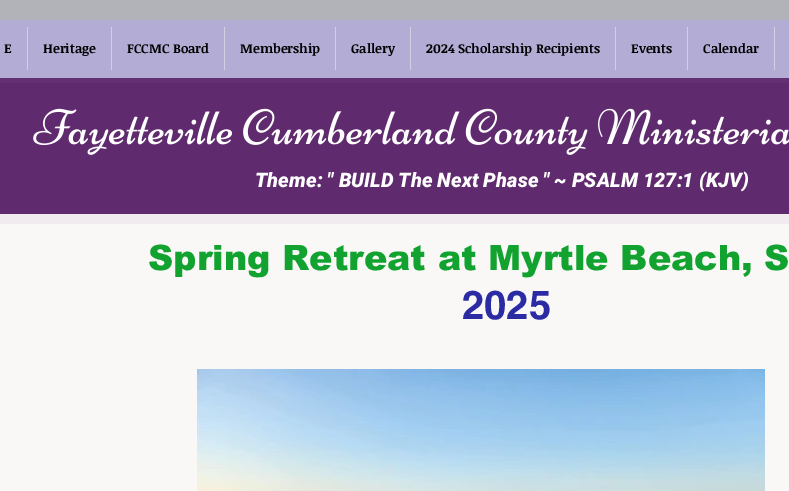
%!PS
<< /PageSize [789 491] >> setpagedevice
/co { dup -16 bitshift 255 div exch dup -8 bitshift 255 and 255 div exch 255 and 255 div setrgbcolor } def
/fn { [ exch dup neg 0 0 3 -1 roll 0 0 ] selectfont } def
/tx { co fn moveto show } def
/bx { co rectfill } def
/im { 5 dict begin { /h /w /y /x /name } { exch def } forall
  gsave x y translate w h scale
  w h 8 [w 0 0 h 0 0] name (r) file false 3 colorimage grestore end } def
0 491 translate 1 -1 scale
4 setmiterlimit
0 0 789 491 16#FAF8F6 bx
0 0 789 20 16#B2B3B8 bx
0 20 789 58 16#B3ACD4 bx
27 27 1 43 16#D6CEE3 bx
111 27 1 43 16#D6CEE3 bx
224 27 1 43 16#D6CEE3 bx
335 27 1 43 16#D6CEE3 bx
410 27 1 43 16#D6CEE3 bx
615 27 1 43 16#D6CEE3 bx
687 27 1 43 16#D6CEE3 bx
774 27 1 43 16#D6CEE3 bx
0 78 789 5 16#633071 bx
0 83 789 131 16#602B6E bx
0 214 789 10 16#F1EAEE bx
(media/1.raw) 33 108 756 47 im
(media/2.raw) 197 369 568 122 im
(E) 4 53 /NoticiaText-Bold 13 16#000000 tx
(Heritage) 43 53 /NoticiaText-Bold 13 16#000000 tx
(FCCMC Board) 127 53 /NoticiaText-Bold 13 16#000000 tx
(Membership) 240 53 /NoticiaText-Bold 13 16#000000 tx
(Gallery) 351 53 /NoticiaText-Bold 13 16#000000 tx
(2024 Scholarship Recipients) 426 53 /NoticiaText-Bold 13 16#000000 tx
(Events) 631 53 /NoticiaText-Bold 13 16#000000 tx
(Calendar) 703 53 /NoticiaText-Bold 13 16#000000 tx
(Theme: " BUILD The Next Phase " ~ PSALM 127:1 \(KJV\)) 255 187 /Roboto-BlackItalic 20 16#FFFFFF tx
(Spring Retreat at Myrtle Beach, S) 148 270 /arial-Black 35 16#12A22F tx
(2025) 462 319 /helvetica-Bold 40 16#2B2BA3 tx
showpage
